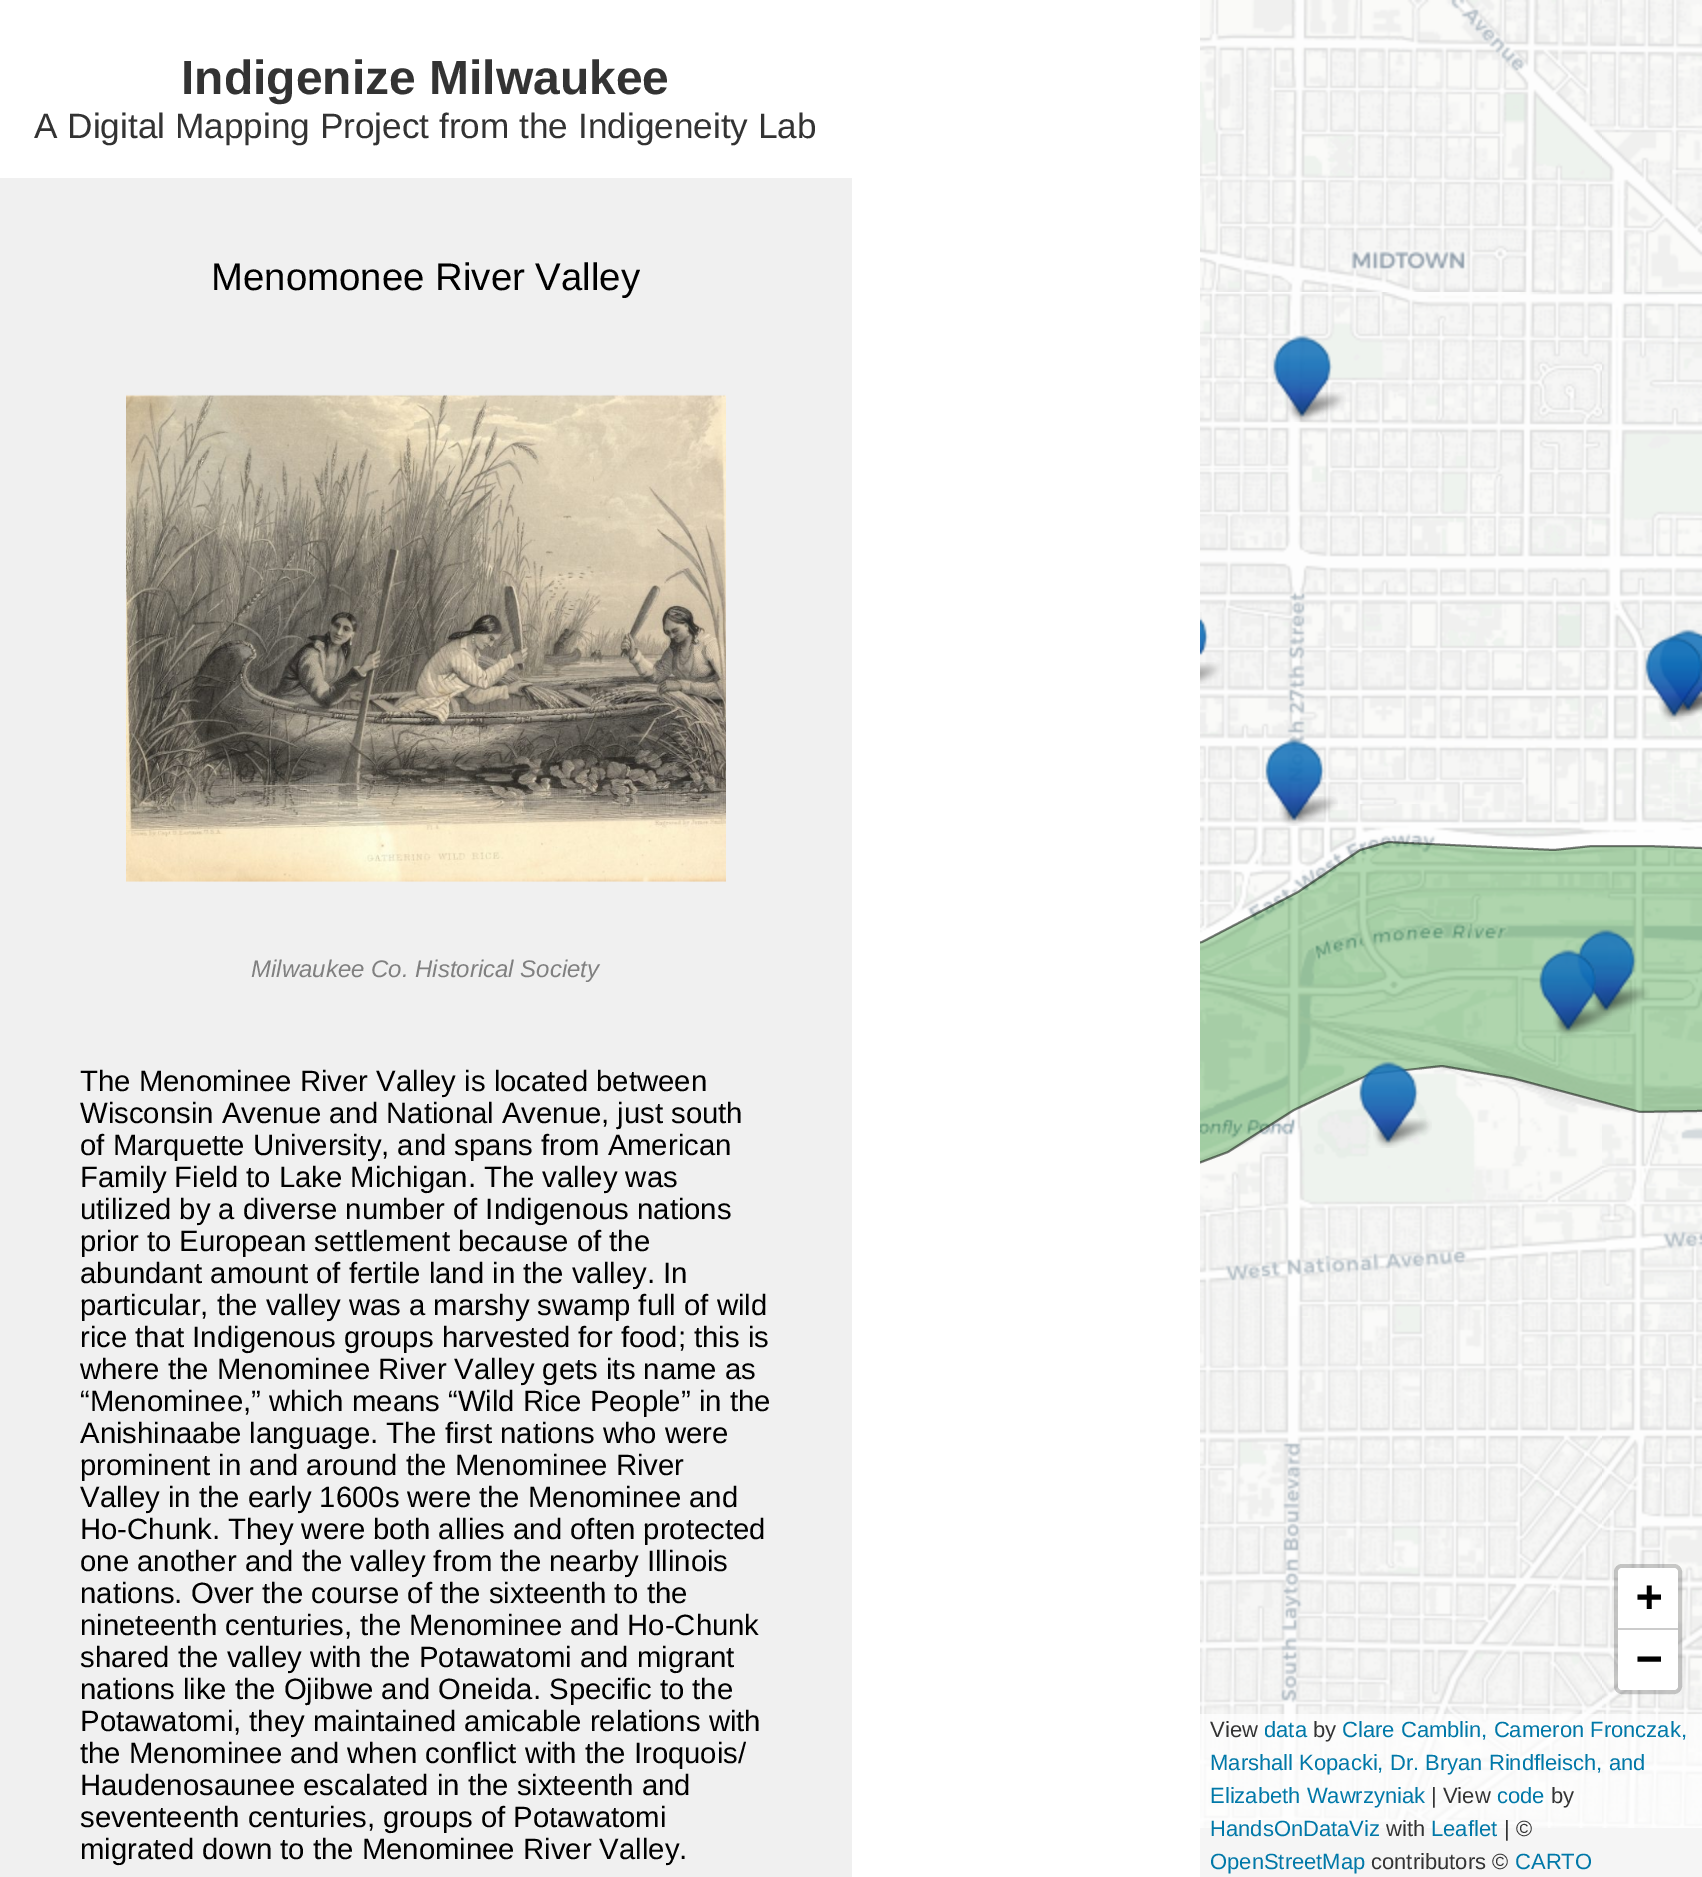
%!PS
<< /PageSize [1702 1877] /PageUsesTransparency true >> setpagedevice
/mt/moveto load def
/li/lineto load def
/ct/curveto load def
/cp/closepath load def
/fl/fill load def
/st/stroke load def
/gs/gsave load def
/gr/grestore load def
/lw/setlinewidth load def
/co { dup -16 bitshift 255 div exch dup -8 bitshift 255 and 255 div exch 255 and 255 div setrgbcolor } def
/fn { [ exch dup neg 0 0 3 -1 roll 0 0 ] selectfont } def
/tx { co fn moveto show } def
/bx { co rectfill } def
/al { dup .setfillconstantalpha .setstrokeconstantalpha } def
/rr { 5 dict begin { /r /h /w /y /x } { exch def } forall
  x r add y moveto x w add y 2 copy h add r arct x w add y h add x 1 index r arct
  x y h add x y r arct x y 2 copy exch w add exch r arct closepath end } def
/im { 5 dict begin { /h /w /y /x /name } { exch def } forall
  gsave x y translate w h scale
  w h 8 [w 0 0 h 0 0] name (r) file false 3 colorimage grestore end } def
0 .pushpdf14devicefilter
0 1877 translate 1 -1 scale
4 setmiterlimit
0 0 1702 1877 16#FFFFFF bx
0 178 852 1699 16#F0F0F0 bx
(media/1.raw) 126 394 600 488 im
1200 1828 502 49 16#DDDDDD bx
(media/2.raw) 1200 0 402 292 im
(media/3.raw) 1602 0 100 292 im
(media/4.raw) 1200 292 402 512 im
(media/5.raw) 1602 292 100 512 im
(media/6.raw) 1200 804 402 512 im
(media/7.raw) 1602 804 100 512 im
(media/8.raw) 1200 1316 402 512 im
(media/9.raw) 1602 1316 100 512 im
(media/18.raw) 1287 392 59 30 im
(media/10.raw) 1273 335 60 82 im
1200 612 2 7 16#F1F1F0 bx
(media/11.raw) 1200 617 9 39 im
(media/20.raw) 1673 686 29 30 im
(media/21.raw) 1659 692 43 30 im
(media/12.raw) 1659 629 43 82 im
(media/13.raw) 1645 635 57 82 im
(media/22.raw) 1279 796 59 30 im
(media/14.raw) 1265 739 60 82 im
gs
1200 0 502 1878 rectclip
0.3 al
16#008000 co
1148 1182 mt 1228 1152 li 1294 1110 li 1370 1074 li 1442 1066 li 1512 1078 li 1640 1112 li 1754 1110 li 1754 850 li 1648 846 li 1592 846 li 1554 850 li 1388 842 li 1360 850 li 1298 892 li 1202 942 li 1148 954 li cp eofill
0.5 al
16#000000 co
2 lw
1 setlinecap
1 setlinejoin
1148 1182 mt 1228 1152 li 1294 1110 li 1370 1074 li 1442 1066 li 1512 1078 li 1640 1112 li 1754 1110 li 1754 850 li 1648 846 li 1592 846 li 1554 850 li 1388 842 li 1360 850 li 1298 892 li 1202 942 li 1148 954 li cp st
gr
(media/23.raw) 1591 986 59 30 im
(media/24.raw) 1553 1006 59 30 im
(media/16.raw) 1577 929 60 82 im
(media/15.raw) 1539 949 57 82 im
(media/25.raw) 1373 1118 59 30 im
(media/17.raw) 1359 1061 60 82 im
(media/19.raw) 1200 662 22 22 im
0.2 al
16#000000 co
4 lw
1616 1566 64 126 6 rr st
1 al
16#FFFFFF co
1622 1568 mt 1674 1568 li 1676 1568 1678 1570 1678 1572 ct 1678 1630 li 1618 1630 li 1618 1572 li 1618 1570 1620 1568 1622 1568 ct cp fl
1618 1628 60 2 16#CCCCCC bx
16#FFFFFF co
1618 1630 mt 1678 1630 li 1678 1686 li 1678 1688 1676 1690 1674 1690 ct 1622 1690 li 1620 1690 1618 1688 1618 1686 ct cp fl
0.7 al
1200 1714 502 163 16#FFFFFF bx
1 al
(Indigenize Milwaukee) 181 94 /LiberationSans-Bold 48 16#333333 tx
(A Digital Mapping Project from the Indigeneity Lab) 34 138 /LiberationSans-Regular 35.2 16#333333 tx
(Menomonee River Valley) 211 290 /LiberationSans-Regular 38.4 16#000000 tx
(Milwaukee Co. Historical Society) 251 977 /LiberationSans-Italic 24 16#808080 tx
(The Menominee River Valley is located between) 80 1091 /LiberationSans-Regular 29.3 16#000000 tx
(Wisconsin Avenue and National Avenue, just south) 80 1123 /LiberationSans-Regular 29.3 16#000000 tx
(of Marquette University, and spans from American) 80 1155 /LiberationSans-Regular 29.3 16#000000 tx
(Family Field to Lake Michigan. The valley was) 80 1187 /LiberationSans-Regular 29.3 16#000000 tx
(utilized by a diverse number of Indigenous nations) 80 1219 /LiberationSans-Regular 29.3 16#000000 tx
(prior to European settlement because of the) 80 1251 /LiberationSans-Regular 29.3 16#000000 tx
(abundant amount of fertile land in the valley. In) 80 1283 /LiberationSans-Regular 29.3 16#000000 tx
(particular, the valley was a marshy swamp full of wild) 80 1315 /LiberationSans-Regular 29.3 16#000000 tx
(rice that Indigenous groups harvested for food; this is) 80 1347 /LiberationSans-Regular 29.3 16#000000 tx
(where the Menominee River Valley gets its name as) 80 1379 /LiberationSans-Regular 29.3 16#000000 tx
(“Menominee,” which means “Wild Rice People” in the) 80 1411 /LiberationSans-Regular 29.3 16#000000 tx
(Anishinaabe language. The first nations who were) 80 1443 /LiberationSans-Regular 29.3 16#000000 tx
(prominent in and around the Menominee River) 80 1475 /LiberationSans-Regular 29.3 16#000000 tx
(Valley in the early 1600s were the Menominee and) 80 1507 /LiberationSans-Regular 29.3 16#000000 tx
(Ho-Chunk. They were both allies and often protected) 80 1539 /LiberationSans-Regular 29.3 16#000000 tx
(one another and the valley from the nearby Illinois) 80 1571 /LiberationSans-Regular 29.3 16#000000 tx
(nations. Over the course of the sixteenth to the) 80 1603 /LiberationSans-Regular 29.3 16#000000 tx
(nineteenth centuries, the Menominee and Ho-Chunk) 80 1635 /LiberationSans-Regular 29.3 16#000000 tx
(shared the valley with the Potawatomi and migrant) 80 1667 /LiberationSans-Regular 29.3 16#000000 tx
(nations like the Ojibwe and Oneida. Specific to the) 80 1699 /LiberationSans-Regular 29.3 16#000000 tx
(Potawatomi, they maintained amicable relations with) 80 1731 /LiberationSans-Regular 29.3 16#000000 tx
(the Menominee and when conflict with the Iroquois/) 80 1763 /LiberationSans-Regular 29.3 16#000000 tx
(Haudenosaunee escalated in the sixteenth and) 80 1795 /LiberationSans-Regular 29.3 16#000000 tx
(seventeenth centuries, groups of Potawatomi) 80 1827 /LiberationSans-Regular 29.3 16#000000 tx
(migrated down to the Menominee River Valley.) 80 1859 /LiberationSans-Regular 29.3 16#000000 tx
(+) 1636 1611 /DejaVuSansMono-Bold 44 16#000000 tx
(−) 1636 1673 /DejaVuSansMono-Bold 44 16#000000 tx
(View) 1210 1737 /LiberationSans-Regular 22 16#333333 tx
(data) 1264 1737 /LiberationSans-Regular 22 16#0078A8 tx
(by) 1313 1737 /LiberationSans-Regular 22 16#333333 tx
(Clare Camblin, Cameron Fronczak,) 1342 1737 /LiberationSans-Regular 22 16#0078A8 tx
(Marshall Kopacki, Dr. Bryan Rindfleisch, and) 1210 1770 /LiberationSans-Regular 22 16#0078A8 tx
(Elizabeth Wawrzyniak) 1210 1803 /LiberationSans-Regular 22 16#0078A8 tx
(| View) 1431 1803 /LiberationSans-Regular 22 16#333333 tx
(code) 1497 1803 /LiberationSans-Regular 22 16#0078A8 tx
(by) 1551 1803 /LiberationSans-Regular 22 16#333333 tx
(HandsOnDataViz) 1210 1836 /LiberationSans-Regular 22 16#0078A8 tx
(with) 1386 1836 /LiberationSans-Regular 22 16#333333 tx
(Leaflet) 1431 1836 /LiberationSans-Regular 22 16#0078A8 tx
(| ©) 1504 1836 /LiberationSans-Regular 22 16#333333 tx
(OpenStreetMap) 1210 1869 /LiberationSans-Regular 22 16#0078A8 tx
(contributors ©) 1371 1869 /LiberationSans-Regular 22 16#333333 tx
(CARTO) 1515 1869 /LiberationSans-Regular 22 16#0078A8 tx
.poppdf14devicefilter showpage
